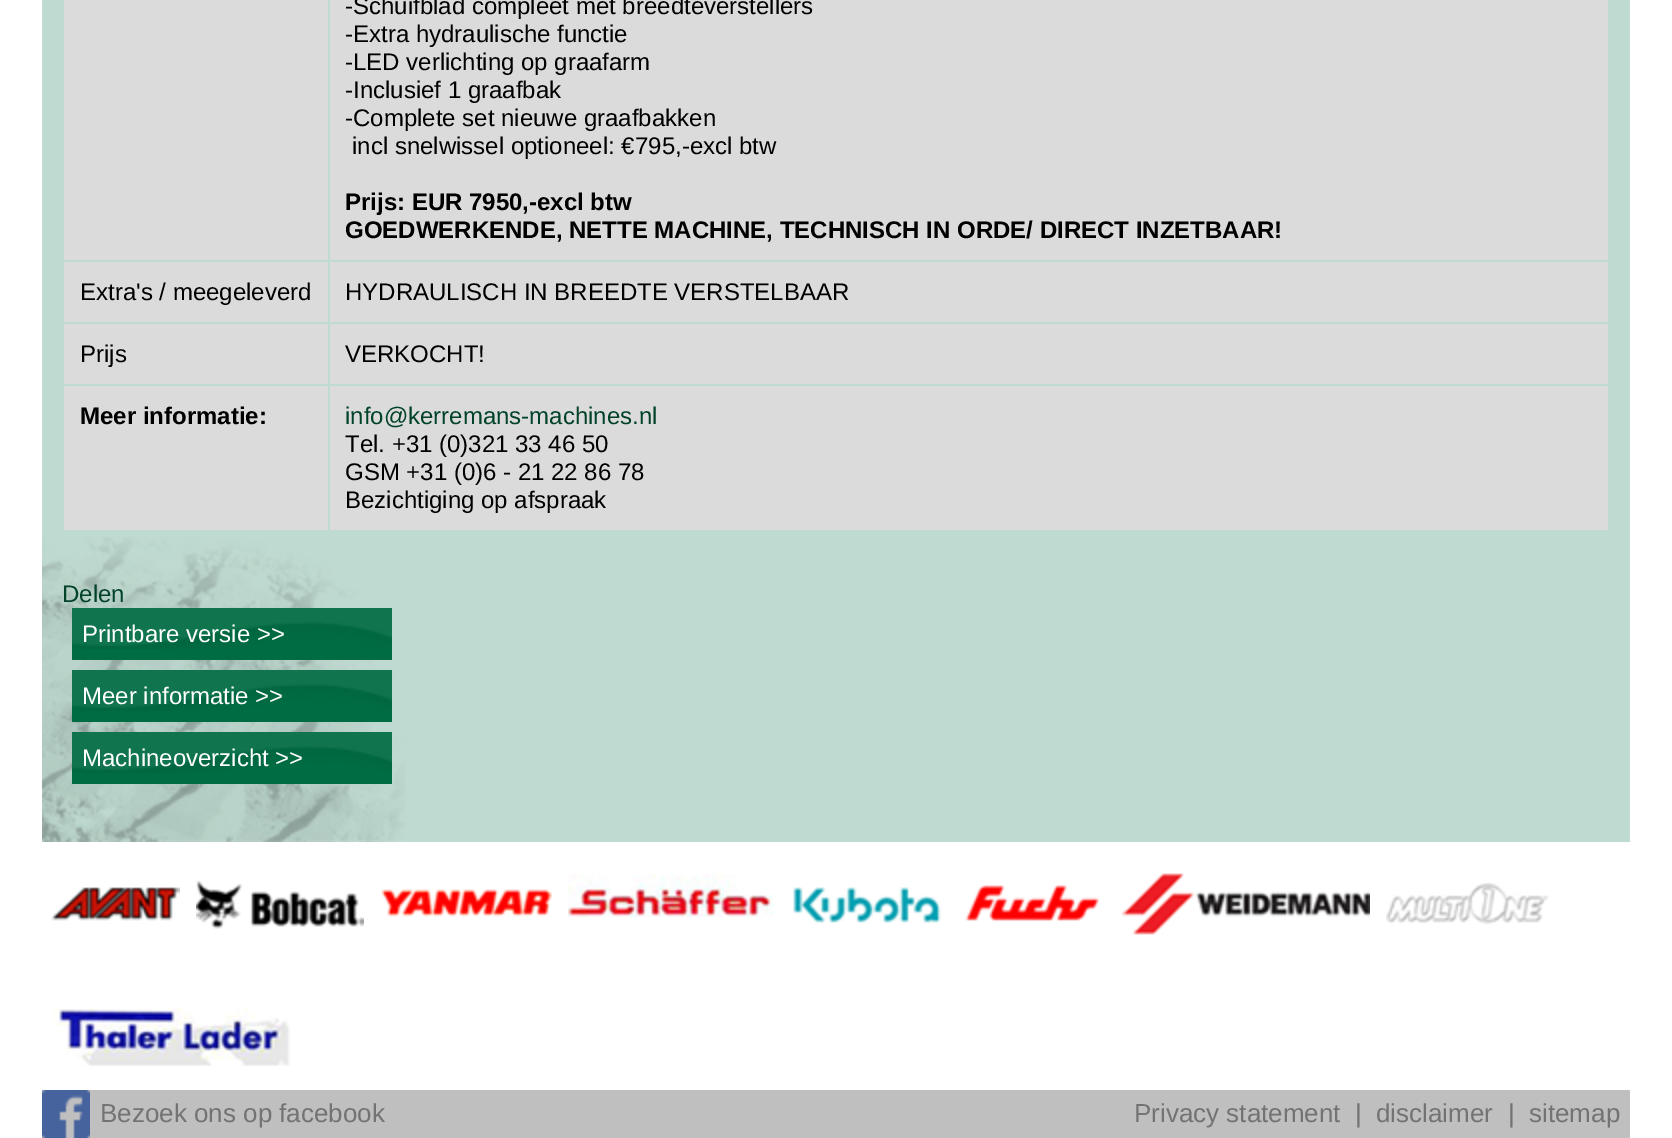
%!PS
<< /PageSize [1672 1138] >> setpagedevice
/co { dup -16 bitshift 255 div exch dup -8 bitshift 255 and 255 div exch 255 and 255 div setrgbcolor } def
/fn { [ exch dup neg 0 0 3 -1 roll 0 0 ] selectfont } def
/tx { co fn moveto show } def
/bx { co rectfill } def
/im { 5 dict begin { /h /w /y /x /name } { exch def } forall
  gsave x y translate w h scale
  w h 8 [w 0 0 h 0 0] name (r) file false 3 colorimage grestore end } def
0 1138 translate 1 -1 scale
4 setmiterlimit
0 0 1672 1138 16#FFFFFF bx
42 0 1588 842 16#BFDAD0 bx
(media/1.raw) 42 537 364 305 im
64 0 264 260 16#DBDBDB bx
330 0 1278 260 16#DBDBDB bx
64 262 264 60 16#DBDBDB bx
330 262 1278 60 16#DBDBDB bx
64 324 264 60 16#DBDBDB bx
330 324 1278 60 16#DBDBDB bx
64 386 264 144 16#DBDBDB bx
330 386 1278 144 16#DBDBDB bx
72 649 320 11 16#006C43 bx
(media/2.raw) 72 608 320 41 im
72 711 320 11 16#006C43 bx
(media/2.raw) 72 670 320 41 im
72 773 320 11 16#006C43 bx
(media/2.raw) 72 732 320 41 im
(media/3.raw) 51 887 129 34 im
(media/4.raw) 196 880 168 49 im
(media/5.raw) 381 889 171 28 im
(media/6.raw) 568 874 206 44 im
(media/7.raw) 793 887 148 36 im
(media/8.raw) 965 885 135 37 im
(media/9.raw) 1122 873 248 62 im
(media/10.raw) 1386 882 163 43 im
(media/11.raw) 52 1007 238 59 im
42 1090 1588 48 16#BFBFBF bx
(media/12.raw) 42 1090 48 48 im
(-Schuifblad compleet met breedteverstellers) 345 14 /LiberationSans-Regular 24 16#000000 tx
(-Extra hydraulische functie) 345 42 /LiberationSans-Regular 24 16#000000 tx
(-LED verlichting op graafarm) 345 70 /LiberationSans-Regular 24 16#000000 tx
(-Inclusief 1 graafbak) 345 98 /LiberationSans-Regular 24 16#000000 tx
(-Complete set nieuwe graafbakken) 345 126 /LiberationSans-Regular 24 16#000000 tx
(incl snelwissel optioneel: €795,-excl btw) 352 154 /LiberationSans-Regular 24 16#000000 tx
(Prijs: EUR 7950,-excl btw) 345 210 /LiberationSans-Bold 24 16#000000 tx
(GOEDWERKENDE, NETTE MACHINE, TECHNISCH IN ORDE/ DIRECT INZETBAAR!) 345 238 /LiberationSans-Bold 24 16#000000 tx
(Extra's / meegeleverd) 80 300 /LiberationSans-Regular 24 16#000000 tx
(HYDRAULISCH IN BREEDTE VERSTELBAAR) 345 300 /LiberationSans-Regular 24 16#000000 tx
(Prijs) 80 362 /LiberationSans-Regular 24 16#000000 tx
(VERKOCHT!) 345 362 /LiberationSans-Regular 24 16#000000 tx
(Meer informatie:) 80 424 /LiberationSans-Bold 24 16#000000 tx
(info@kerremans-machines.nl) 345 424 /LiberationSans-Regular 24 16#014229 tx
(Tel. +31 \(0\)321 33 46 50) 345 452 /LiberationSans-Regular 24 16#000000 tx
(GSM +31 \(0\)6 - 21 22 86 78) 345 480 /LiberationSans-Regular 24 16#000000 tx
(Bezichtiging op afspraak) 345 508 /LiberationSans-Regular 24 16#000000 tx
(Delen) 62 602 /LiberationSans-Regular 24 16#014229 tx
(Printbare versie >>) 82 642 /LiberationSans-Regular 24 16#FFFFFF tx
(Meer informatie >>) 82 704 /LiberationSans-Regular 24 16#FFFFFF tx
(Machineoverzicht >>) 82 766 /LiberationSans-Regular 24 16#FFFFFF tx
(Bezoek ons op facebook) 100 1122 /LiberationSans-Regular 26 16#737373 tx
(Privacy statement) 1134 1122 /LiberationSans-Regular 26 16#737373 tx
(|) 1355 1122 /LiberationSans-Regular 26 16#737373 tx
(disclaimer) 1376 1122 /LiberationSans-Regular 26 16#737373 tx
(|) 1508 1122 /LiberationSans-Regular 26 16#737373 tx
(sitemap) 1529 1122 /LiberationSans-Regular 26 16#737373 tx
showpage
